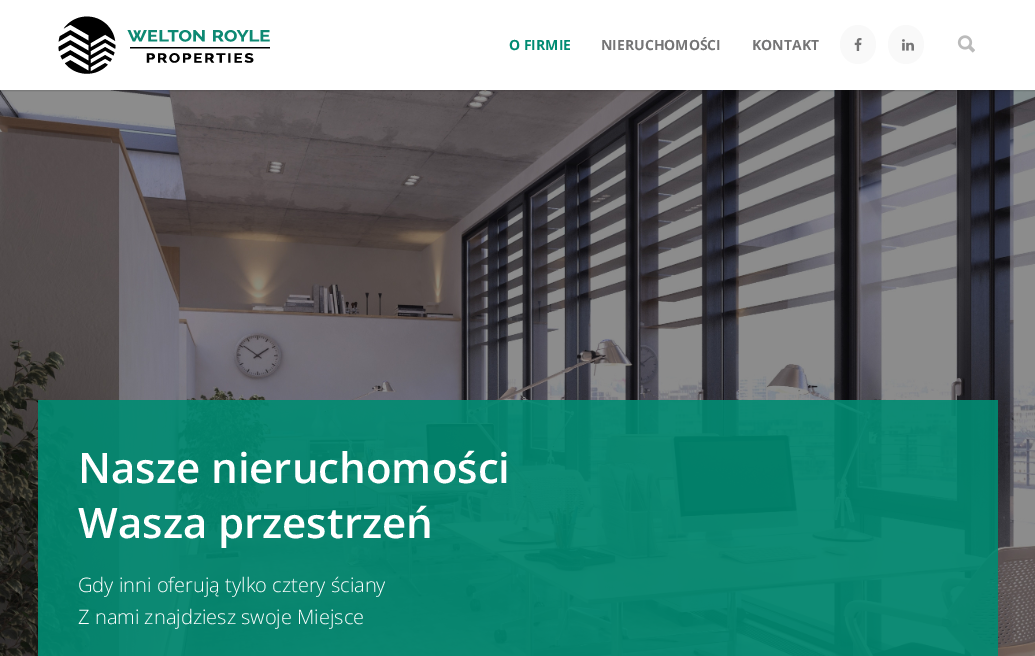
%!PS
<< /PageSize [1035 656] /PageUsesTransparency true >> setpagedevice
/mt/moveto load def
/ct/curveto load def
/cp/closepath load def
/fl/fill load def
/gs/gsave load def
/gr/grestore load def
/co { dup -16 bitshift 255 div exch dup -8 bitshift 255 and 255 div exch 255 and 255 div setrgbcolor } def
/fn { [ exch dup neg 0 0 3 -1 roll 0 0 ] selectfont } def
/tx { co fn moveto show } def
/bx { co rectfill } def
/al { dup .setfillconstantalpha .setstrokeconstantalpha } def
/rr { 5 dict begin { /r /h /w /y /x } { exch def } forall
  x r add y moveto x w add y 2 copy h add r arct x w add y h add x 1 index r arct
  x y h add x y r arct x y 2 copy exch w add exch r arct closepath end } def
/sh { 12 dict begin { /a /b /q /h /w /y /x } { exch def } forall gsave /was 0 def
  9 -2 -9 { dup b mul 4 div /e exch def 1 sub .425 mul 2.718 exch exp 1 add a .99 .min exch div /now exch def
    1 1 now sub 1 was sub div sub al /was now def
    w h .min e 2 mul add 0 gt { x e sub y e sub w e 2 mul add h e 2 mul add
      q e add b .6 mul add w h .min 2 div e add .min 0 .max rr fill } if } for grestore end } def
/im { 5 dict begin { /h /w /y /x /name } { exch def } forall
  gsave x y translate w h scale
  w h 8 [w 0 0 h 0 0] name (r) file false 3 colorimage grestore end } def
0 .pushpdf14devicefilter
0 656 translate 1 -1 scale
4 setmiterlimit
0 0 1035 656 16#FFFFFF bx
(media/5.raw) 0 90 1035 566 im
gs
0 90 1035 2 rectclip
16#000000 co
-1 -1 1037 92 0 1 .16 sh
gr
(media/1.raw) 58 16 212 58 im
16#F9F9F9 co
858 25 mt 868 25 876 33.5 876 44.5 ct 876 55.5 868 64 858 64 ct 848 64 840 55.5 840 44.5 ct 840 33.5 848 25 858 25 ct cp fl
(media/2.raw) 854 38 8 13 im
906 25 mt 916 25 924 33.5 924 44.5 ct 924 55.5 916 64 906 64 ct 896 64 888 55.5 888 44.5 ct 888 33.5 896 25 906 25 ct cp fl
(media/3.raw) 902 39 12 12 im
(media/4.raw) 957 35 18 18 im
0.9 al
38 400 960 256 16#008B72 bx
1 al
(O FIRMIE) 509 50 /OpenSans-Bold 14 16#008B72 tx
(NIERUCHOMOŚCI) 601 50 /OpenSans-Bold 14 16#757576 tx
(KONTAKT) 752 50 /OpenSans-Bold 14 16#757576 tx
(Nasze nieruchomości) 78 483 /OpenSans-SemiBold 42 16#FFFFFF tx
(Wasza przestrzeń) 78 538 /OpenSans-SemiBold 42 16#FFFFFF tx
(Gdy inni oferują tylko cztery ściany) 78 592 /OpenSans-Light 20 16#FFFFFF tx
(Z nami znajdziesz swoje Miejsce) 78 624 /OpenSans-Light 20 16#FFFFFF tx
.poppdf14devicefilter showpage
